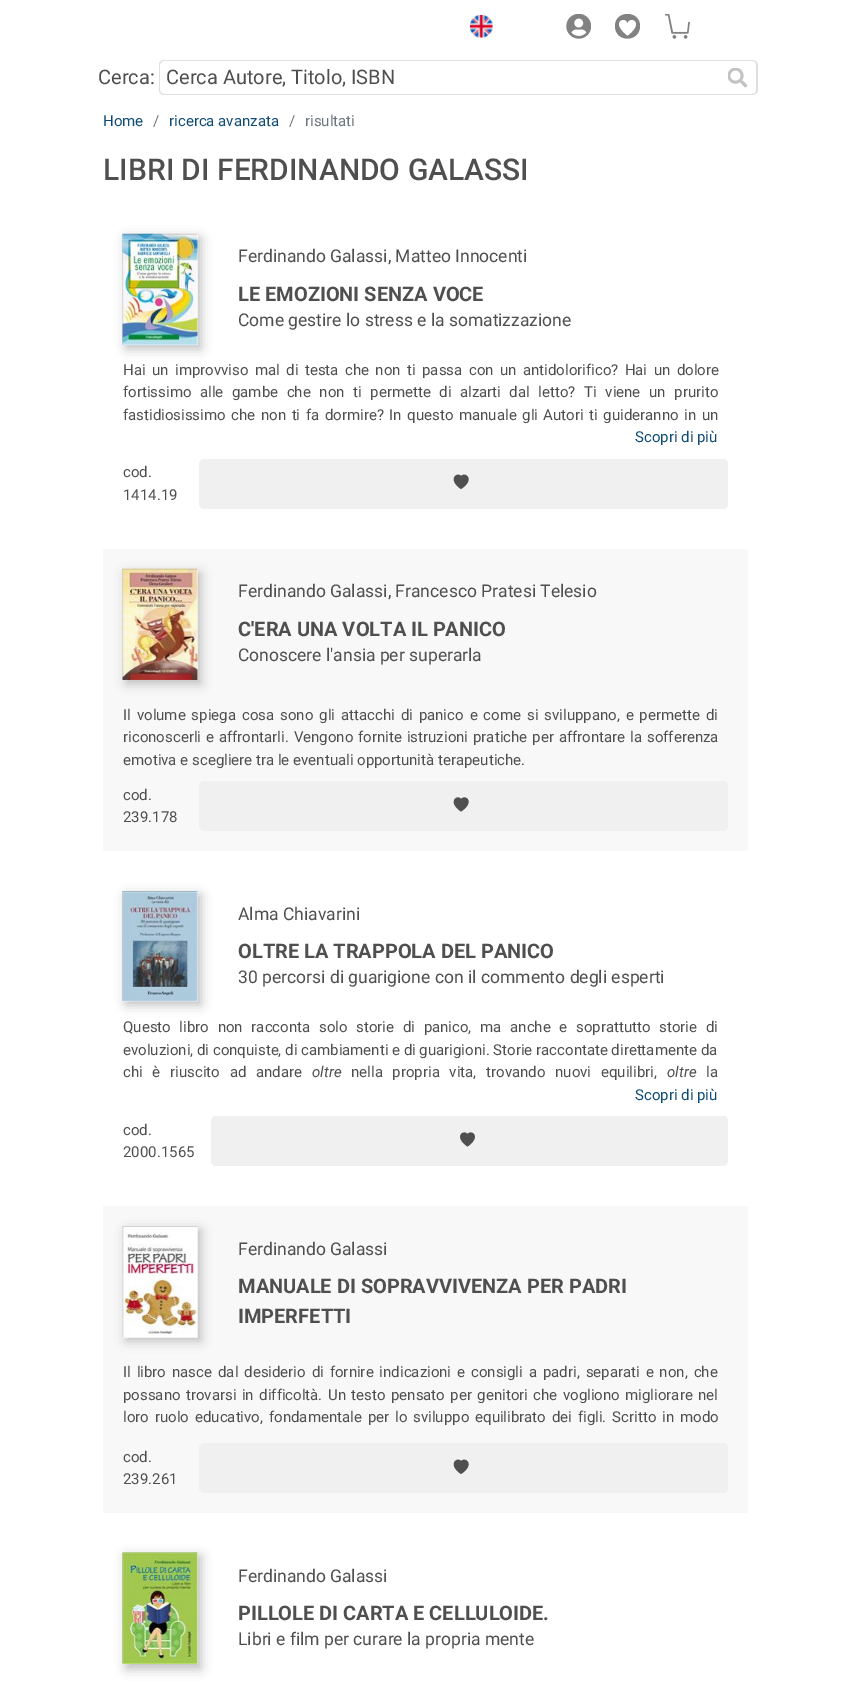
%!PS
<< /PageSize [850 1684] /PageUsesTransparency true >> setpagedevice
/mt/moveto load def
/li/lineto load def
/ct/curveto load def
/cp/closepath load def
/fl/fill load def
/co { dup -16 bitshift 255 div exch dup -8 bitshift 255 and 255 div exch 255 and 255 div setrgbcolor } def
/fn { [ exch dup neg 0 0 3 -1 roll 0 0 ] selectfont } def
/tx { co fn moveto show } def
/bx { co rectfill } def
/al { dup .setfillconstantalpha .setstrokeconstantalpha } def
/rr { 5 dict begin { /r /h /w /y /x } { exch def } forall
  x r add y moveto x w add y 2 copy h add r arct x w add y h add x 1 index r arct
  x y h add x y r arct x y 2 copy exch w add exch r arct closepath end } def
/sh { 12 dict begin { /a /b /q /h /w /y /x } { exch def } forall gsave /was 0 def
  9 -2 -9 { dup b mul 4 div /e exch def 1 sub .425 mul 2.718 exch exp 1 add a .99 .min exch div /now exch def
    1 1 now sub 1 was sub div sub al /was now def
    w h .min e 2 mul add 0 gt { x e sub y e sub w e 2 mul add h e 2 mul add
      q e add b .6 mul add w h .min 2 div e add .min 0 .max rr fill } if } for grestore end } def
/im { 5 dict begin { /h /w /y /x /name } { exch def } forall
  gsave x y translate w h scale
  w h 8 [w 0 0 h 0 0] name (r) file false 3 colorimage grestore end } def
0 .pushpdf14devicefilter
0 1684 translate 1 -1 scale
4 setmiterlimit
0 0 850 1684 16#FFFFFF bx
(media/1.raw) 470 15 23 23 im
(media/2.raw) 566 14 25 25 im
16#828282 co
627.5 36 mt 608.5 21.5 626 15.5 627.5 23 ct 629 15.5 646.5 21.5 627.5 36 ct cp 640 26 mt 640 10 615 10 615 26 ct 615 43 640 42.5 640 26 ct cp fl
(media/3.raw) 665 14 25 25 im
16#E0E0E0 co
164 60 mt 718 60 li 718 95 li 164 95 li 161 95 159 93 159 90 ct 159 65 li 159 62 161 60 164 60 ct cp 164 61 mt 718 61 li 718 94 li 164 94 li 162 94 160 92 160 90 ct 160 65 li 160 63 162 61 164 61 ct cp eofill
718 60 mt 752 60 li 755 60 758 62 758 65 ct 758 90 li 758 93 755 95 752 95 ct 718 95 li cp 718 61 mt 752 61 li 755 61 756 63 756 65 ct 756 90 li 756 92 755 94 752 94 ct 718 94 li cp eofill
(media/4.raw) 728 68 20 20 im
16#BDBDBD co
126 238 75 111 0 5.5 1 sh
(media/5.raw) 122 233 76 112 im
16#F0F0F0 co
199 459 529 50 5 rr fl
16#4F4F4F co
461 476 mt 465.5 471.5 475.5 479.5 461 489 ct 447 479.5 457 471.5 461 476 ct cp fl
103 549 645 302 16#F8F8F8 bx
16#BDBDBD co
126 573 75 111 0 5.5 1 sh
(media/6.raw) 122 568 76 112 im
16#F0F0F0 co
199 781 529 50 5 rr fl
16#4F4F4F co
461 799 mt 465.5 794 475.5 802 461 811.5 ct 447 802 457 794 461 799 ct cp fl
16#BDBDBD co
126 895 75 110 0 5.5 1 sh
(media/7.raw) 122 891 76 111 im
16#F0F0F0 co
211 1116 517 50 5 rr fl
16#4F4F4F co
467.5 1134 mt 472 1129 481.5 1137 467.5 1146.5 ct 453.5 1137 463 1129 467.5 1134 ct cp fl
103 1206 645 307 16#F8F8F8 bx
16#BDBDBD co
126 1230 75 111 0 5.5 1 sh
(media/8.raw) 122 1226 76 112 im
16#F0F0F0 co
199 1443 529 50 5 rr fl
16#4F4F4F co
461 1461 mt 465.5 1456.5 475.5 1464.5 461 1474 ct 447 1464.5 457 1456.5 461 1461 ct cp fl
16#BDBDBD co
126 1556 75 113 0 5.5 1 sh
(media/9.raw) 122 1552 76 112 im
(Cerca:) 98 84 /Roboto-Regular 20 16#4F4F4F tx
(Cerca Autore, Titolo, ISBN) 166 84 /Roboto-Regular 20 16#4F4F4F tx
(Home) 103 126 /Roboto-Regular 15 16#0F4C75 tx
(/) 153 126 /Roboto-Regular 15 16#6C757D tx
(ricerca avanzata) 169 126 /Roboto-Regular 15 16#0F4C75 tx
(/) 289 126 /Roboto-Regular 15 16#6C757D tx
(risultati) 305 126 /Roboto-Regular 15 16#6C757D tx
(LIBRI DI FERDINANDO GALASSI) 103 180 /Roboto-Medium 30 16#4F4F4F tx
(Ferdinando Galassi, Matteo Innocenti) 238 262 /Roboto-Regular 17.5 16#4F4F4F tx
(LE EMOZIONI SENZA VOCE) 238 301 /Roboto-Bold 20 16#4F4F4F tx
(Come gestire lo stress e la somatizzazione) 238 326 /Roboto-Regular 17.5 16#4F4F4F tx
/Roboto-Regular 15 fn
123 375 mt 2.75 0 32 (Hai un improvviso mal di testa che non ti passa con un antidolorifico? Hai un dolore) widthshow
123 397 mt 4.9 0 32 (fortissimo alle gambe che non ti permette di alzarti dal letto? Ti viene un prurito) widthshow
123 420 mt 1.9 0 32 (fastidiosissimo che non ti fa dormire? In questo manuale gli Autori ti guideranno in un) widthshow
(Scopri di più) 635 442 /Roboto-Regular 15 16#0F4C75 tx
(cod.) 123 477 /Roboto-Regular 15 16#4F4F4F tx
(1414.19) 123 500 /Roboto-Regular 15 16#4F4F4F tx
(Ferdinando Galassi, Francesco Pratesi Telesio) 238 597 /Roboto-Regular 17.5 16#4F4F4F tx
(C'ERA UNA VOLTA IL PANICO) 238 636 /Roboto-Bold 20 16#4F4F4F tx
(Conoscere l'ansia per superarla) 238 661 /Roboto-Regular 17.5 16#4F4F4F tx
/Roboto-Regular 15 fn
123 720 mt 2.25 0 32 (Il volume spiega cosa sono gli attacchi di panico e come si sviluppano, e permette di) widthshow
123 742 mt 1.25 0 32 (riconoscerli e affrontarli. Vengono fornite istruzioni pratiche per affrontare la sofferenza) widthshow
(emotiva e scegliere tra le eventuali opportunità terapeutiche.) 123 765 /Roboto-Regular 15 16#4F4F4F tx
(cod.) 123 800 /Roboto-Regular 15 16#4F4F4F tx
(239.178) 123 822 /Roboto-Regular 15 16#4F4F4F tx
(Alma Chiavarini) 238 920 /Roboto-Regular 17.5 16#4F4F4F tx
(OLTRE LA TRAPPOLA DEL PANICO) 238 958 /Roboto-Bold 20 16#4F4F4F tx
(30 percorsi di guarigione con il commento degli esperti) 238 983 /Roboto-Regular 17.5 16#4F4F4F tx
/Roboto-Regular 15 fn
123 1032 mt 5 0 32 (Questo libro non racconta solo storie di panico, ma anche e soprattutto storie di) widthshow
(evoluzioni, di conquiste, di cambiamenti e di guarigioni. Storie raccontate direttamente da) 123 1055 /Roboto-Regular 15 16#4F4F4F tx
123 1077 mt 6 0 32 (chi è riuscito ad andare) widthshow
(oltre) 312 1077 /Roboto-Italic 15 16#4F4F4F tx
/Roboto-Regular 15 fn
351 1077 mt 6 0 32 (nella propria vita, trovando nuovi equilibri,) widthshow
(oltre) 667 1077 /Roboto-Italic 15 16#4F4F4F tx
(la) 706 1077 /Roboto-Regular 15 16#4F4F4F tx
(Scopri di più) 635 1100 /Roboto-Regular 15 16#0F4C75 tx
(cod.) 123 1135 /Roboto-Regular 15 16#4F4F4F tx
(2000.1565) 123 1157 /Roboto-Regular 15 16#4F4F4F tx
(Ferdinando Galassi) 238 1255 /Roboto-Regular 17.5 16#4F4F4F tx
(MANUALE DI SOPRAVVIVENZA PER PADRI) 238 1293 /Roboto-Bold 20 16#4F4F4F tx
(IMPERFETTI) 238 1323 /Roboto-Bold 20 16#4F4F4F tx
/Roboto-Regular 15 fn
123 1377 mt 2.25 0 32 (Il libro nasce dal desiderio di fornire indicazioni e consigli a padri, separati e non, che) widthshow
123 1400 mt 1.75 0 32 (possano trovarsi in difficoltà. Un testo pensato per genitori che vogliono migliorare nel) widthshow
123 1422 mt 2.25 0 32 (loro ruolo educativo, fondamentale per lo sviluppo equilibrato dei figli. Scritto in modo) widthshow
(cod.) 123 1462 /Roboto-Regular 15 16#4F4F4F tx
(239.261) 123 1484 /Roboto-Regular 15 16#4F4F4F tx
(Ferdinando Galassi) 238 1582 /Roboto-Regular 17.5 16#4F4F4F tx
(PILLOLE DI CARTA E CELLULOIDE.) 238 1620 /Roboto-Bold 20 16#4F4F4F tx
(Libri e film per curare la propria mente) 238 1645 /Roboto-Regular 17.5 16#4F4F4F tx
.poppdf14devicefilter showpage
